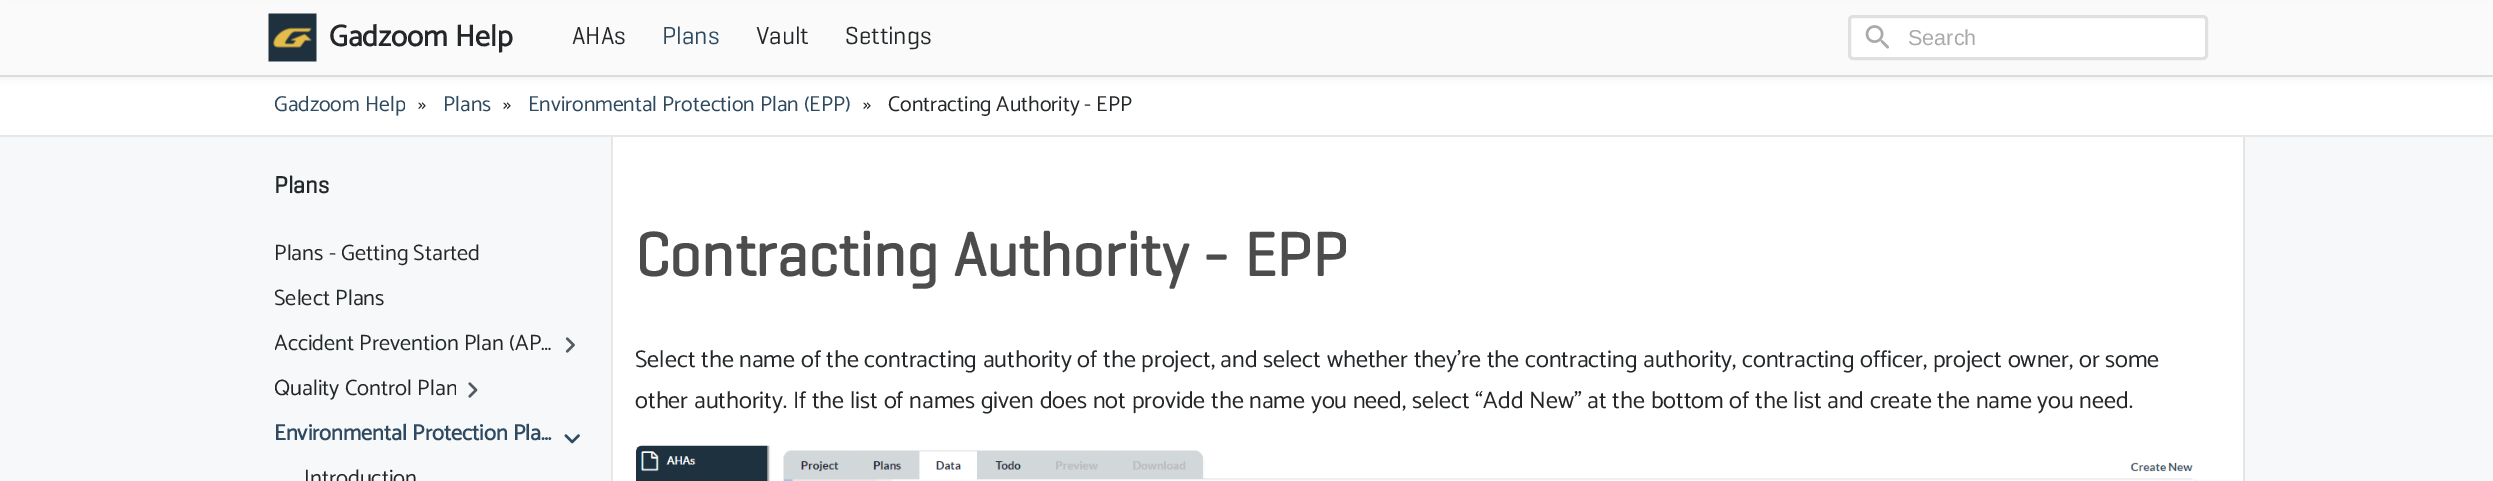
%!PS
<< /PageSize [2493 481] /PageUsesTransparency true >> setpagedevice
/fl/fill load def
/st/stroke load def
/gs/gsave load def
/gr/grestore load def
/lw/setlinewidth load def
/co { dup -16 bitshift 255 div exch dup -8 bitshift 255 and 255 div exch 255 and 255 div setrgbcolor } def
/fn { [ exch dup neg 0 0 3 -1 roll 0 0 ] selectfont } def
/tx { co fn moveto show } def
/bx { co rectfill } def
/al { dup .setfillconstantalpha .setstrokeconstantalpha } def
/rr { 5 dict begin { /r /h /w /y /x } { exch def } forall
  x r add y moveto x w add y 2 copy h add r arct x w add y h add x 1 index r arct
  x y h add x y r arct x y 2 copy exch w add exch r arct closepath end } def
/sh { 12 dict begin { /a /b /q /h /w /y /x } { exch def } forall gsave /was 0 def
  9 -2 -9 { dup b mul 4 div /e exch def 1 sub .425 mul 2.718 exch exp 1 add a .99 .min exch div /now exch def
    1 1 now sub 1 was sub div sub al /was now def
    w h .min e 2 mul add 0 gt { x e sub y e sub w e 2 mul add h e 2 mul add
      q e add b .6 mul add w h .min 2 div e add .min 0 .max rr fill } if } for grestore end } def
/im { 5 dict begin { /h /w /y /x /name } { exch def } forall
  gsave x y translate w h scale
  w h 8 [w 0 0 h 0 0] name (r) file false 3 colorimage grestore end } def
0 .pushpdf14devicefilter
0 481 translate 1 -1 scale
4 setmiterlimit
0 0 2493 481 16#FFFFFF bx
16#3C4146 co
0 2 2493 75 0 4.5 .1 sh
0.1 al
0 75 2493 2 16#0C0D0E bx
1 al
0 1 2493 74 16#FAFAFA bx
(media/1.raw) 268 13 49 49 im
16#FFFFFF co
1849.5 16.5 357 42 3.5 rr gs fl gr
16#E0E0E0 co
3 lw
st
(media/2.raw) 1865 25 24 24 im
0 135 2493 2 16#E7E7E7 bx
0 137 2493 344 16#F7F8F9 bx
2244 137 1 344 16#E0E1E2 bx
(media/3.raw) 565 337 10 16 im
(media/4.raw) 468 382 10 16 im
(media/5.raw) 564 434 16 10 im
613 137 1630 344 16#FFFFFF bx
2243 137 1 344 16#E7E7E7 bx
611 137 2 344 16#E7E7E7 bx
(media/6.raw) 636 445 1561 36 im
(Gadzoom Help) 329 46 /Catamaran-Bold 30 16#242729 tx
(AHAs) 572 44 /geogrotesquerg-Regular 25 16#242729 tx
(Plans) 662 44 /geogrotesquerg-Regular 25 16#2E4A60 tx
(Vault) 756 44 /geogrotesquerg-Regular 25 16#242729 tx
(Settings) 845 44 /geogrotesquerg-Regular 25 16#242729 tx
(Search) 1908 45 /LiberationSans-Regular 21.6 16#AAAAAA tx
gs
275 87 130 36 rectclip
(Gadzoom Help) 274 111 /Catamaran-Thin 21.6 16#2E4A60 tx
gr
(») 418 111 /Catamaran-Thin 21.6 16#242729 tx
(Plans) 443 111 /Catamaran-Thin 21.6 16#2E4A60 tx
(») 503 111 /Catamaran-Thin 21.6 16#242729 tx
(Environmental Protection Plan \(EPP\)) 528 111 /Catamaran-Thin 21.6 16#2E4A60 tx
(») 863 111 /Catamaran-Thin 21.6 16#242729 tx
(Contracting Authority - EPP) 888 111 /Catamaran-Thin 21.6 16#242729 tx
(Plans) 274 193 /geogrotesquerg-Bold 24 16#242729 tx
(Plans - Getting Started) 274 260 /Catamaran-Thin 22.25 16#242729 tx
gs
275 281 109 36 rectclip
(Select Plans) 274 305 /Catamaran-Thin 22.25 16#242729 tx
gr
gs
275 326 279 36 rectclip
(Accident Prevention Plan \(AP…) 274 350 /Catamaran-Thin 22.25 16#242729 tx
gr
gs
275 371 181 36 rectclip
(Quality Control Plan) 274 395 /Catamaran-Thin 22.25 16#242729 tx
gr
(Environmental Protection Pla…) 274 440 /Catamaran-Bold 22.25 16#2E4A60 tx
(Introduction) 304 485 /Catamaran-Thin 22.25 16#242729 tx
(Contracting Authority - EPP) 635 276 /geogrotesquerg-Bold 62.4 16#4C4C4C tx
(Select the name of the contracting authority of the project, and select whether they’re the contracting authority, contracting officer, project owner, or some) 635 367 /Catamaran-Thin 24 16#242729 tx
(other authority. If the list of names given does not provide the name you need, select “Add New” at the bottom of the list and create the name you need.) 635 408 /Catamaran-Thin 24 16#242729 tx
.poppdf14devicefilter showpage
